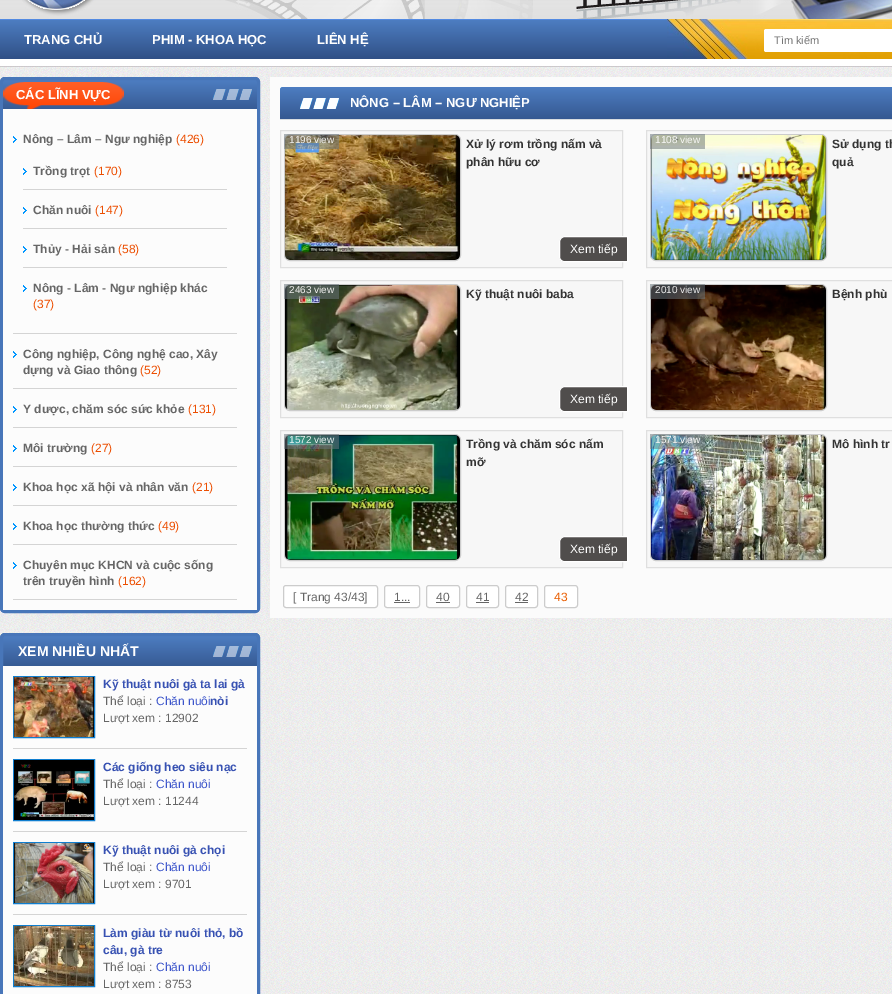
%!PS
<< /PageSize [892 994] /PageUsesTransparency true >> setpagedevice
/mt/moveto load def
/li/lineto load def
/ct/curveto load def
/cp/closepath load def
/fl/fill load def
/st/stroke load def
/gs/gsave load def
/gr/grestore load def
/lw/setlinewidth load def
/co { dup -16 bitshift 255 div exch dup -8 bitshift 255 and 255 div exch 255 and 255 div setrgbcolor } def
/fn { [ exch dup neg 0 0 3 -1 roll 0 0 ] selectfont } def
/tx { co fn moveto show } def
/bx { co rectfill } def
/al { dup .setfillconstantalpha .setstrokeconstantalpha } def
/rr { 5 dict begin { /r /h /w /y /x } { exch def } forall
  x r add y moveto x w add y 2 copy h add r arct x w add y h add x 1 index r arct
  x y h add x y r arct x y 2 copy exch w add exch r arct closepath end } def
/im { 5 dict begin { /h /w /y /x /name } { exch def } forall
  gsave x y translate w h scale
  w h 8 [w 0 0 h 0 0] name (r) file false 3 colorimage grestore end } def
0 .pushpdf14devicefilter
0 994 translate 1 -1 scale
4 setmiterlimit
0 0 892 994 16#FFFFFF bx
(media/1.raw) 0 67 892 927 im
(media/2.raw) 0 0 892 67 im
(media/3.raw) 22 0 870 19 im
(media/4.raw) 667 19 225 40 im
766 29 mt 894 29 li 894 52 li 766 52 li 765 52 764 51 764 50 ct 764 31 li 764 30 765 29 766 29 ct cp fl
(media/5.raw) 0 77 260 536 im
16#4876B9 co
3 lw
1.5 78.5 257 533 3.5 rr st
(media/6.raw) 213 89 39 11 im
(media/7.raw) 3 82 121 27 im
3 109 254 501 16#FCFCFC bx
(media/8.raw) 13 136 4 7 im
13 333 224 1 16#D4D4D4 bx
(media/8.raw) 23 168 4 7 im
23 189 204 1 16#D4D4D4 bx
(media/8.raw) 23 207 4 7 im
23 228 204 1 16#D4D4D4 bx
(media/8.raw) 23 246 4 7 im
23 267 204 1 16#D4D4D4 bx
(media/8.raw) 23 285 4 7 im
(media/8.raw) 13 351 4 7 im
13 388 224 1 16#D4D4D4 bx
(media/8.raw) 13 406 4 7 im
13 427 224 1 16#D4D4D4 bx
(media/8.raw) 13 445 4 7 im
13 466 224 1 16#D4D4D4 bx
(media/8.raw) 13 484 4 7 im
13 505 224 1 16#D4D4D4 bx
(media/8.raw) 13 523 4 7 im
13 544 224 1 16#D4D4D4 bx
(media/8.raw) 13 562 4 7 im
13 599 224 1 16#D4D4D4 bx
(media/9.raw) 0 633 260 33 im
16#4876B9 co
1.5 634.5 257 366 3.5 rr st
(media/10.raw) 213 646 39 11 im
3 666 254 328 16#FCFCFC bx
13 748 234 1 16#D4D4D4 bx
16#107ECF co
1 lw
13.5 676.5 81 61 rectstroke
(media/11.raw) 14 677 80 60 im
13 831 234 1 16#D4D4D4 bx
16#107ECF co
13.5 759.5 81 61 rectstroke
(media/12.raw) 14 760 80 60 im
13 914 234 1 16#D4D4D4 bx
16#107ECF co
13.5 842.5 81 61 rectstroke
(media/13.raw) 14 843 80 60 im
13.5 925.5 81 61 rectstroke
(media/14.raw) 14 926 80 60 im
270 77 622 541 16#FBFBFB bx
(media/15.raw) 280 87 612 32 im
280 119 612 1 16#D9DDE0 bx
(media/16.raw) 300 98 39 11 im
16#F7F7F7 co
280.5 130.5 mt 622.5 130.5 li 622.5 267.5 li 280.5 267.5 li cp gs fl gr
16#DFDFDF co
st
16#CCCCCC co
284.5 134.5 176 126 5.5 rr st
(media/17.raw) 285 135 175 125 im
0.53 al
284 134 55 15 16#6A767C bx
1 al
16#504D4C co
565 236.5 mt 627.5 236.5 li 627.5 261.5 li 564 261.5 li 561.5 261.5 559.5 259.5 559.5 257 ct 559.5 242 li 559.5 239 562 236.5 565 236.5 ct cp gs fl gr
16#FFFFFF co
st
16#F7F7F7 co
646.5 130.5 mt 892.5 130.5 li 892.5 267.5 li 646.5 267.5 li cp gs fl gr
16#DFDFDF co
st
16#CCCCCC co
650.5 134.5 176 126 5.5 rr st
(media/18.raw) 651 135 175 125 im
0.53 al
650 134 55 15 16#6A767C bx
1 al
16#F7F7F7 co
280.5 280.5 mt 622.5 280.5 li 622.5 417.5 li 280.5 417.5 li cp gs fl gr
16#DFDFDF co
st
16#CCCCCC co
284.5 284.5 176 126 5.5 rr st
(media/19.raw) 285 285 175 125 im
0.53 al
284 284 55 15 16#6A767C bx
1 al
16#504D4C co
565 386.5 mt 627.5 386.5 li 627.5 411.5 li 564 411.5 li 561.5 411.5 559.5 409.5 559.5 407 ct 559.5 392 li 559.5 389 562 386.5 565 386.5 ct cp gs fl gr
16#FFFFFF co
st
16#F7F7F7 co
646.5 280.5 mt 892.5 280.5 li 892.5 417.5 li 646.5 417.5 li cp gs fl gr
16#DFDFDF co
st
16#CCCCCC co
650.5 284.5 176 126 5.5 rr st
(media/20.raw) 651 285 175 125 im
0.53 al
650 284 55 15 16#6A767C bx
1 al
16#F7F7F7 co
280.5 430.5 mt 622.5 430.5 li 622.5 567.5 li 280.5 567.5 li cp gs fl gr
16#DFDFDF co
st
16#CCCCCC co
284.5 434.5 176 126 5.5 rr st
(media/21.raw) 285 435 175 125 im
0.53 al
284 434 55 15 16#6A767C bx
1 al
16#504D4C co
565 536.5 mt 627.5 536.5 li 627.5 561.5 li 564 561.5 li 561.5 561.5 559.5 559.5 559.5 557 ct 559.5 542 li 559.5 539 562 536.5 565 536.5 ct cp gs fl gr
16#FFFFFF co
st
16#F7F7F7 co
646.5 430.5 mt 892.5 430.5 li 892.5 567.5 li 646.5 567.5 li cp gs fl gr
16#DFDFDF co
st
16#CCCCCC co
650.5 434.5 176 126 5.5 rr st
(media/22.raw) 651 435 175 125 im
0.53 al
650 434 55 15 16#6A767C bx
1 al
16#FFFFFF co
283.5 585.5 94 22 2.5 rr gs fl gr
16#CCCCCC co
st
16#FFFFFF co
384.5 585.5 35 22 2.5 rr gs fl gr
16#CCCCCC co
st
394 602 16 1 16#666666 bx
16#FFFFFF co
426.5 585.5 33 22 2.5 rr gs fl gr
16#CCCCCC co
st
436 602 14 1 16#666666 bx
16#FFFFFF co
466.5 585.5 32 22 2.5 rr gs fl gr
16#CCCCCC co
st
476 602 13 1 16#666666 bx
16#FFFFFF co
505.5 585.5 32 22 2.5 rr gs fl gr
16#CCCCCC co
st
515 602 13 1 16#666666 bx
16#FFFFFF co
544.5 585.5 33 22 2.5 rr gs fl gr
16#CCCCCC co
st
(TRANG CHỦ) 24 44 /LiberationSans-Bold 13 16#FFFFFF tx
(PHIM - KHOA HỌC) 152 44 /LiberationSans-Bold 13 16#FFFFFF tx
(LIÊN HỆ) 317 44 /LiberationSans-Bold 13 16#FFFFFF tx
(Tìm kiếm) 774 44 /LiberationSans-Regular 11 16#757575 tx
(CÁC LĨNH VỰC) 16 99 /LiberationSans-Bold 13 16#FFFFFF tx
(Nông – Lâm – Ngư nghiệp) 23 143 /LiberationSans-Bold 12 16#666666 tx
(\(426\)) 176 143 /LiberationSans-Regular 12 16#EC4F02 tx
(Trồng trọt) 33 175 /LiberationSans-Bold 12 16#666666 tx
(\(170\)) 94 175 /LiberationSans-Regular 12 16#EC4F02 tx
(Chăn nuôi) 33 214 /LiberationSans-Bold 12 16#666666 tx
(\(147\)) 95 214 /LiberationSans-Regular 12 16#EC4F02 tx
(Thủy - Hải sản) 33 253 /LiberationSans-Bold 12 16#666666 tx
(\(58\)) 118 253 /LiberationSans-Regular 12 16#EC4F02 tx
(Nông - Lâm - Ngư nghiệp khác) 33 292 /LiberationSans-Bold 12 16#666666 tx
(\(37\)) 33 308 /LiberationSans-Regular 12 16#EC4F02 tx
(Công nghiệp, Công nghệ cao, Xây) 23 358 /LiberationSans-Bold 12 16#666666 tx
(dựng và Giao thông) 23 374 /LiberationSans-Bold 12 16#666666 tx
(\(52\)) 140 374 /LiberationSans-Regular 12 16#EC4F02 tx
(Y dược, chăm sóc sức khỏe) 23 413 /LiberationSans-Bold 12 16#666666 tx
(\(131\)) 188 413 /LiberationSans-Regular 12 16#EC4F02 tx
(Môi trường) 23 452 /LiberationSans-Bold 12 16#666666 tx
(\(27\)) 91 452 /LiberationSans-Regular 12 16#EC4F02 tx
(Khoa học xã hội và nhân văn) 23 491 /LiberationSans-Bold 12 16#666666 tx
(\(21\)) 192 491 /LiberationSans-Regular 12 16#EC4F02 tx
(Khoa học thường thức) 23 530 /LiberationSans-Bold 12 16#666666 tx
(\(49\)) 158 530 /LiberationSans-Regular 12 16#EC4F02 tx
(Chuyên mục KHCN và cuộc sống) 23 569 /LiberationSans-Bold 12 16#666666 tx
(trên truyền hình) 23 585 /LiberationSans-Bold 12 16#666666 tx
(\(162\)) 118 585 /LiberationSans-Regular 12 16#EC4F02 tx
(XEM NHIỀU NHẤT) 18 656 /LiberationSans-Bold 14 16#FFFFFF tx
(Kỹ thuật nuôi gà ta lai gà) 103 688 /LiberationSans-Bold 12 16#3751B2 tx
(Thể loại :) 103 705 /LiberationSans-Regular 12 16#666666 tx
(Chăn nuôi) 156 705 /LiberationSans-Regular 12 16#3B54CA tx
(nòi) 210 705 /LiberationSans-Bold 12 16#3751B2 tx
(Lượt xem : 12902) 103 722 /LiberationSans-Regular 12 16#666666 tx
(Các giống heo siêu nạc) 103 771 /LiberationSans-Bold 12 16#3751B2 tx
(Thể loại :) 103 788 /LiberationSans-Regular 12 16#666666 tx
(Chăn nuôi) 156 788 /LiberationSans-Regular 12 16#3B54CA tx
(Lượt xem : 11244) 103 805 /LiberationSans-Regular 12 16#666666 tx
(Kỹ thuật nuôi gà chọi) 103 854 /LiberationSans-Bold 12 16#3751B2 tx
(Thể loại :) 103 871 /LiberationSans-Regular 12 16#666666 tx
(Chăn nuôi) 156 871 /LiberationSans-Regular 12 16#3B54CA tx
(Lượt xem : 9701) 103 888 /LiberationSans-Regular 12 16#666666 tx
(Làm giàu từ nuôi thỏ, bồ) 103 937 /LiberationSans-Bold 12 16#3751B2 tx
(câu, gà tre) 103 954 /LiberationSans-Bold 12 16#3751B2 tx
(Thể loại :) 103 971 /LiberationSans-Regular 12 16#666666 tx
(Chăn nuôi) 156 971 /LiberationSans-Regular 12 16#3B54CA tx
(Lượt xem : 8753) 103 988 /LiberationSans-Regular 12 16#666666 tx
(NÔNG – LÂM – NGƯ NGHIỆP) 350 107 /LiberationSans-Bold 13 16#FFFFFF tx
(1196 view) 289 143 /LiberationSans-Regular 10 16#F2F1EF tx
(Xử lý rơm trồng nấm và) 466 148 /LiberationSans-Bold 12 16#333333 tx
(phân hữu cơ) 466 166 /LiberationSans-Bold 12 16#333333 tx
(Xem tiếp) 570 253 /LiberationSans-Regular 12 16#FFFFFF tx
(1108 view) 655 143 /LiberationSans-Regular 10 16#F7F7F6 tx
(Sử dụng th) 832 148 /LiberationSans-Bold 12 16#333333 tx
(quả) 832 166 /LiberationSans-Bold 12 16#333333 tx
(2463 view) 289 293 /LiberationSans-Regular 10 16#F2F1EF tx
(Kỹ thuật nuôi baba) 466 298 /LiberationSans-Bold 12 16#333333 tx
(Xem tiếp) 570 403 /LiberationSans-Regular 12 16#FFFFFF tx
(2010 view) 655 293 /LiberationSans-Regular 10 16#ECECEC tx
(Bệnh phù) 832 298 /LiberationSans-Bold 12 16#333333 tx
(1572 view) 289 443 /LiberationSans-Regular 10 16#EBF2F1 tx
(Trồng và chăm sóc nấm) 466 448 /LiberationSans-Bold 12 16#333333 tx
(mỡ) 466 466 /LiberationSans-Bold 12 16#333333 tx
(Xem tiếp) 570 553 /LiberationSans-Regular 12 16#FFFFFF tx
(1571 view) 655 443 /LiberationSans-Regular 10 16#F7F7F6 tx
(Mô hình tr) 832 448 /LiberationSans-Bold 12 16#333333 tx
([ Trang 43/43]) 293 601 /LiberationSans-Regular 12 16#666666 tx
(1...) 394 601 /LiberationSans-Regular 12 16#666666 tx
(40) 436 601 /LiberationSans-Regular 12 16#666666 tx
(41) 476 601 /LiberationSans-Regular 12 16#666666 tx
(42) 515 601 /LiberationSans-Regular 12 16#666666 tx
(43) 554 601 /LiberationSans-Regular 12 16#E95D00 tx
.poppdf14devicefilter showpage
